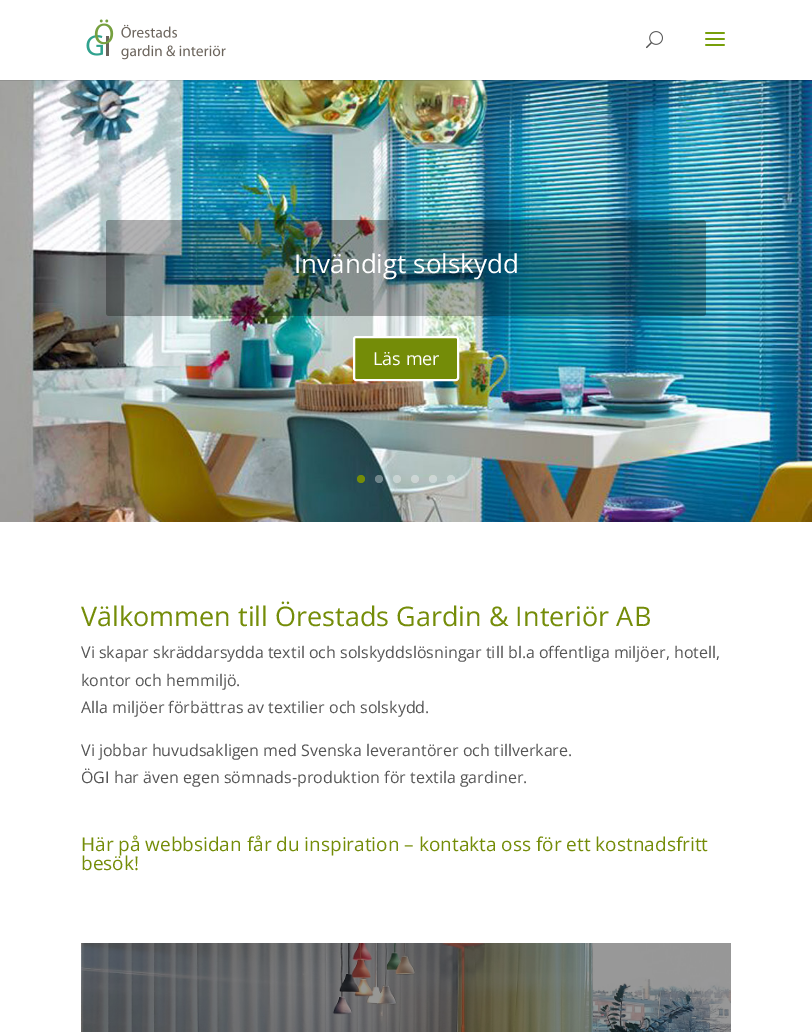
%!PS
<< /PageSize [812 1032] /PageUsesTransparency true >> setpagedevice
/fl/fill load def
/st/stroke load def
/gs/gsave load def
/gr/grestore load def
/lw/setlinewidth load def
/co { dup -16 bitshift 255 div exch dup -8 bitshift 255 and 255 div exch 255 and 255 div setrgbcolor } def
/fn { [ exch dup neg 0 0 3 -1 roll 0 0 ] selectfont } def
/tx { co fn moveto show } def
/bx { co rectfill } def
/al { dup .setfillconstantalpha .setstrokeconstantalpha } def
/ci { newpath 0 360 arc closepath } def
/rr { 5 dict begin { /r /h /w /y /x } { exch def } forall
  x r add y moveto x w add y 2 copy h add r arct x w add y h add x 1 index r arct
  x y h add x y r arct x y 2 copy exch w add exch r arct closepath end } def
/im { 5 dict begin { /h /w /y /x /name } { exch def } forall
  gsave x y translate w h scale
  w h 8 [w 0 0 h 0 0] name (r) file false 3 colorimage grestore end } def
0 .pushpdf14devicefilter
0 1032 translate 1 -1 scale
4 setmiterlimit
0 0 812 1032 16#FFFFFF bx
(media/4.raw) 0 80 812 442 im
0.1 al
0 80 812 1 16#000000 bx
1 al
(media/1.raw) 86 19 140 41 im
(media/2.raw) 646 31 17 18 im
(media/3.raw) 705 32 20 14 im
0.3 al
106 220 600 96 3 rr fl
1 al
16#748C08 co
354 337 104 43 2 rr gs fl gr
16#FFFFFF co
2 lw
st
16#748C08 co
361 479 4 ci fl
0.35 al
16#FFFFFF co
379 479 4 ci fl
397 479 4 ci fl
415 479 4 ci fl
433 479 4 ci fl
451 479 4 ci fl
1 al
(media/5.raw) 81 943 650 89 im
(Invändigt solskydd) 294 273 /OpenSans-Regular 26 16#FFFFFF tx
(Läs mer) 373 365 /OpenSans-Regular 18 16#FFFFFF tx
(Välkommen till Örestads Gardin & Interiör AB) 81 626 /OpenSans-Regular 27 16#748C08 tx
(Vi skapar skräddarsydda textil och solskyddslösningar till bl.a offentliga miljöer, hotell,) 81 658 /OpenSans-Regular 16 16#555555 tx
(kontor och hemmiljö.) 81 686 /OpenSans-Regular 16 16#555555 tx
(Alla miljöer förbättras av textilier och solskydd.) 81 713 /OpenSans-Regular 16 16#555555 tx
(Vi jobbar huvudsakligen med Svenska leverantörer och tillverkare.) 81 756 /OpenSans-Regular 16 16#555555 tx
(ÖGI har även egen sömnads-produktion för textila gardiner.) 81 783 /OpenSans-Regular 16 16#555555 tx
(Här på webbsidan får du inspiration – kontakta oss för ett kostnadsfritt) 81 851 /OpenSans-Regular 19 16#748C08 tx
(besök!) 81 870 /OpenSans-Regular 19 16#748C08 tx
.poppdf14devicefilter showpage
